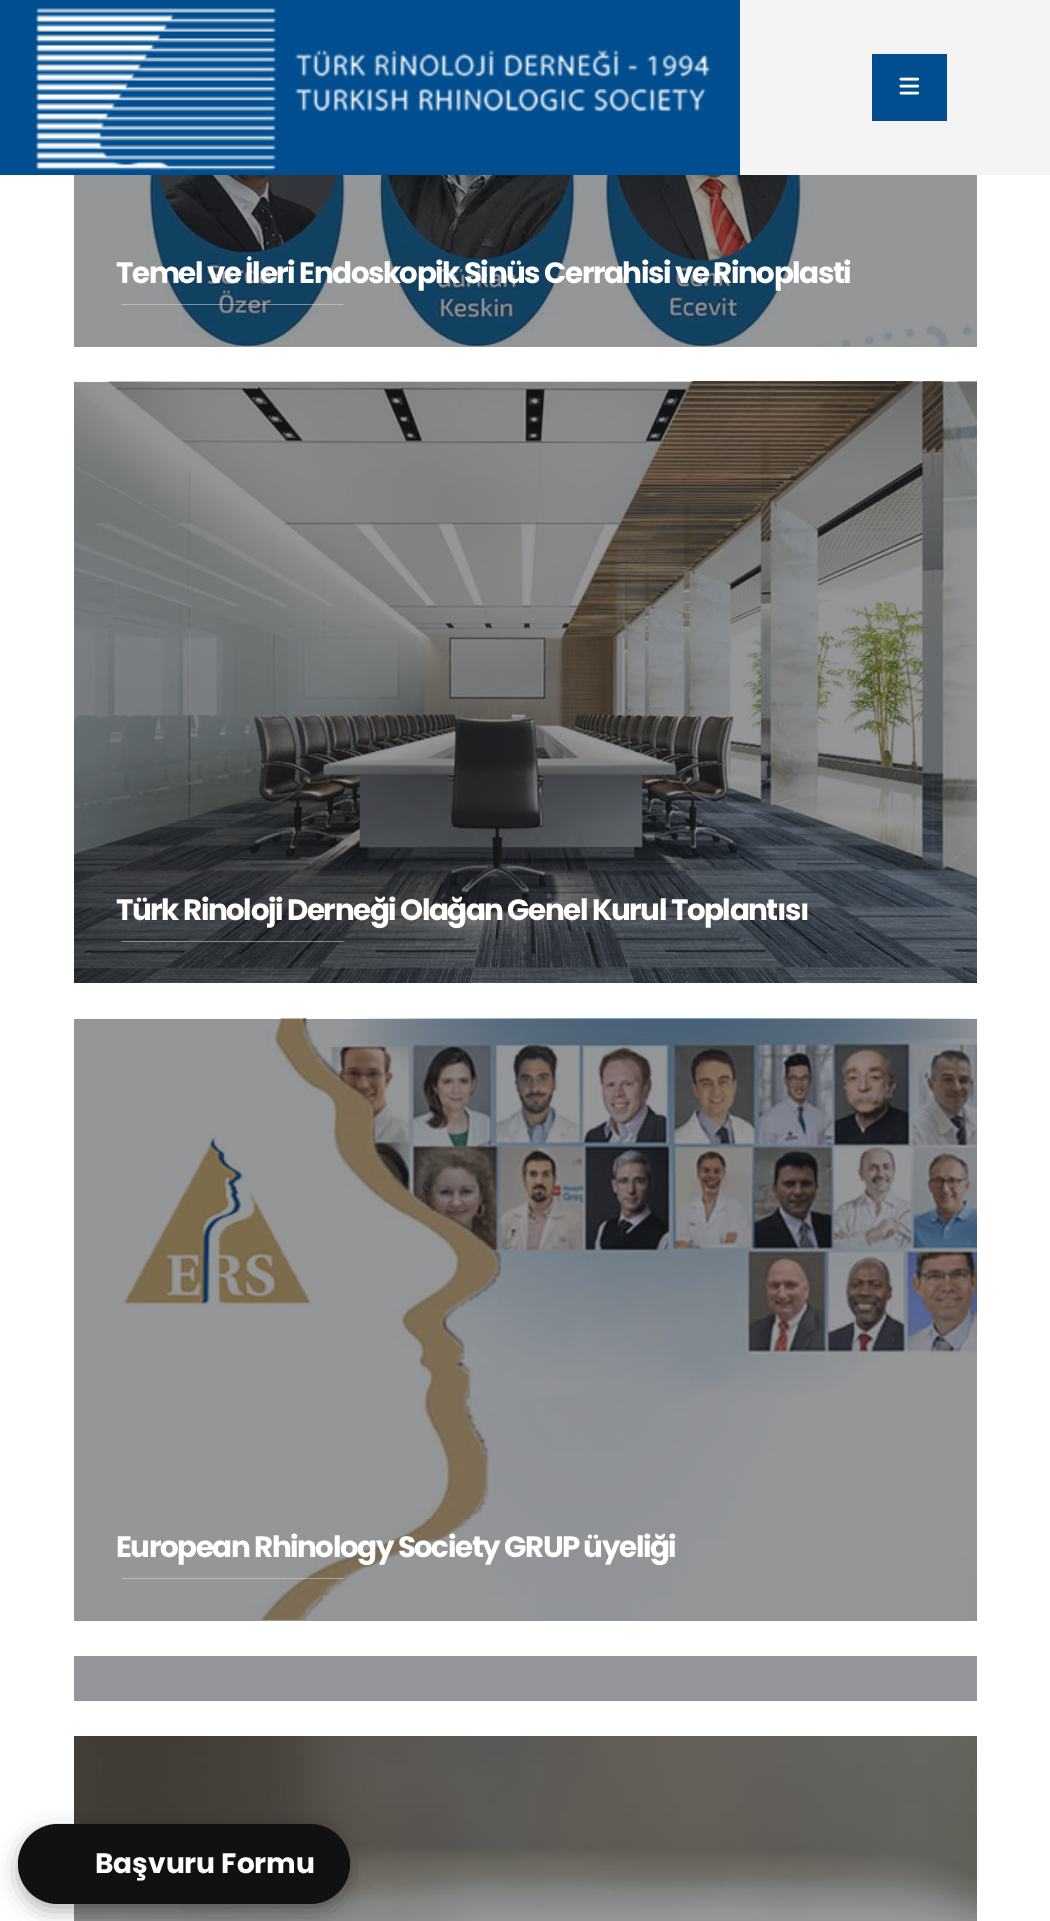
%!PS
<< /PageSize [1050 1921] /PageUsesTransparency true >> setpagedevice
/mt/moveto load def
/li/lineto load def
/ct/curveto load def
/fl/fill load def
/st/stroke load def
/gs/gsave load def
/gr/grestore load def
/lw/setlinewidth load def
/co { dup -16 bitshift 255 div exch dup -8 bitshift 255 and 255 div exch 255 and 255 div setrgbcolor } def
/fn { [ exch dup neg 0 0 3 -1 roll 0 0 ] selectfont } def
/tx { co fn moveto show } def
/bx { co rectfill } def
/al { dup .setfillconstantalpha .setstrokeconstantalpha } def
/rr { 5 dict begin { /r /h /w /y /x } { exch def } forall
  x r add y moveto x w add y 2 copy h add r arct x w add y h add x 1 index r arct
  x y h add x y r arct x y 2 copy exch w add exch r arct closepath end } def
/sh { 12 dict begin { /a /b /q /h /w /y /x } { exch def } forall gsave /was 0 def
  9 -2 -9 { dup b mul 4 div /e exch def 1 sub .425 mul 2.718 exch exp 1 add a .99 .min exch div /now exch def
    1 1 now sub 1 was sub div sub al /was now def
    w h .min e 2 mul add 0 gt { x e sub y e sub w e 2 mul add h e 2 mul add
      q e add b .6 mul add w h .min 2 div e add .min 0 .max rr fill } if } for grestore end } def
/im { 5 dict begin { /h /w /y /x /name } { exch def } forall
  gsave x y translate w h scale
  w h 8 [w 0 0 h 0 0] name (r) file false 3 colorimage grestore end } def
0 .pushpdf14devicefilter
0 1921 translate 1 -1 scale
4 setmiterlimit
0 0 1050 1921 16#FFFFFF bx
74 1019 903 602 16#949698 bx
74 175 903 172 16#949698 bx
0 0 740 175 16#004E90 bx
(media/1.raw) 36 8 675 163 im
740 0 310 175 16#F4F4F4 bx
872 54 75 67 16#004E90 bx
(media/2.raw) 899 77 21 18 im
(media/3.raw) 145 175 832 171 im
gs
116 291 819 14 rectclip
16#D9D9D9 co
1.8 lw
118.5 364.5 mt 117 363 116.5 361 116.5 359 ct 116.5 313 li 116.5 311 117 309 118.5 307.5 ct 120 306 122 305.5 124 305.5 ct 341 305.5 li 343.5 305.5 345.5 306 347 307.5 ct 348.5 309 349 311 349 313 ct 349 359 li 349 361 348.5 363 347 364.5 ct st
gr
(media/4.raw) 74 381 903 602 im
gs
116 928 819 14 rectclip
16#D9D9D9 co
1.8 lw
118.5 1001.5 mt 117 1000 116.5 998 116.5 996 ct 116.5 950 li 116.5 948 117 946 118.5 944.5 ct 120 943 122 942.5 124 942.5 ct 341 942.5 li 343.5 942.5 345.5 943 347 944.5 ct 348.5 946 349 948 349 950 ct 349 996 li 349 998 348.5 1000 347 1001.5 ct st
gr
(media/5.raw) 121 1018 856 602 im
gs
116 1565 819 14 rectclip
16#D9D9D9 co
1.8 lw
118.5 1638.5 mt 117 1637 116.5 1635 116.5 1633 ct 116.5 1587 li 116.5 1585 117 1583 118.5 1581.5 ct 120 1580 122 1579.5 124 1579.5 ct 341 1579.5 li 343.5 1579.5 345.5 1580 347 1581.5 ct 348.5 1583 349 1585 349 1587 ct 349 1633 li 349 1635 348.5 1637 347 1638.5 ct st
gr
74 1656 903 45 16#959699 bx
(media/6.raw) 74 1736 903 185 im
16#000000 co
18 1831 332 80 40 10.5 .3 sh
16#111111 co
18 1824 332 80 40 rr fl
/Poppins-Bold 29.4 fn
16#FFFFFF co
116 283 mt -1.47 0 (Temel ve İleri Endoskopik Sinüs Cerrahisi ve Rinoplasti) ashow
116 920 mt -1.47 0 (Türk Rinoloji Derneği Olağan Genel Kurul Toplantısı) ashow
116 1557 mt -1.47 0 (European Rhinology Society GRUP üyeliği) ashow
(Başvuru Formu) 95 1873 /Poppins-Bold 28 16#FFFFFF tx
.poppdf14devicefilter showpage
